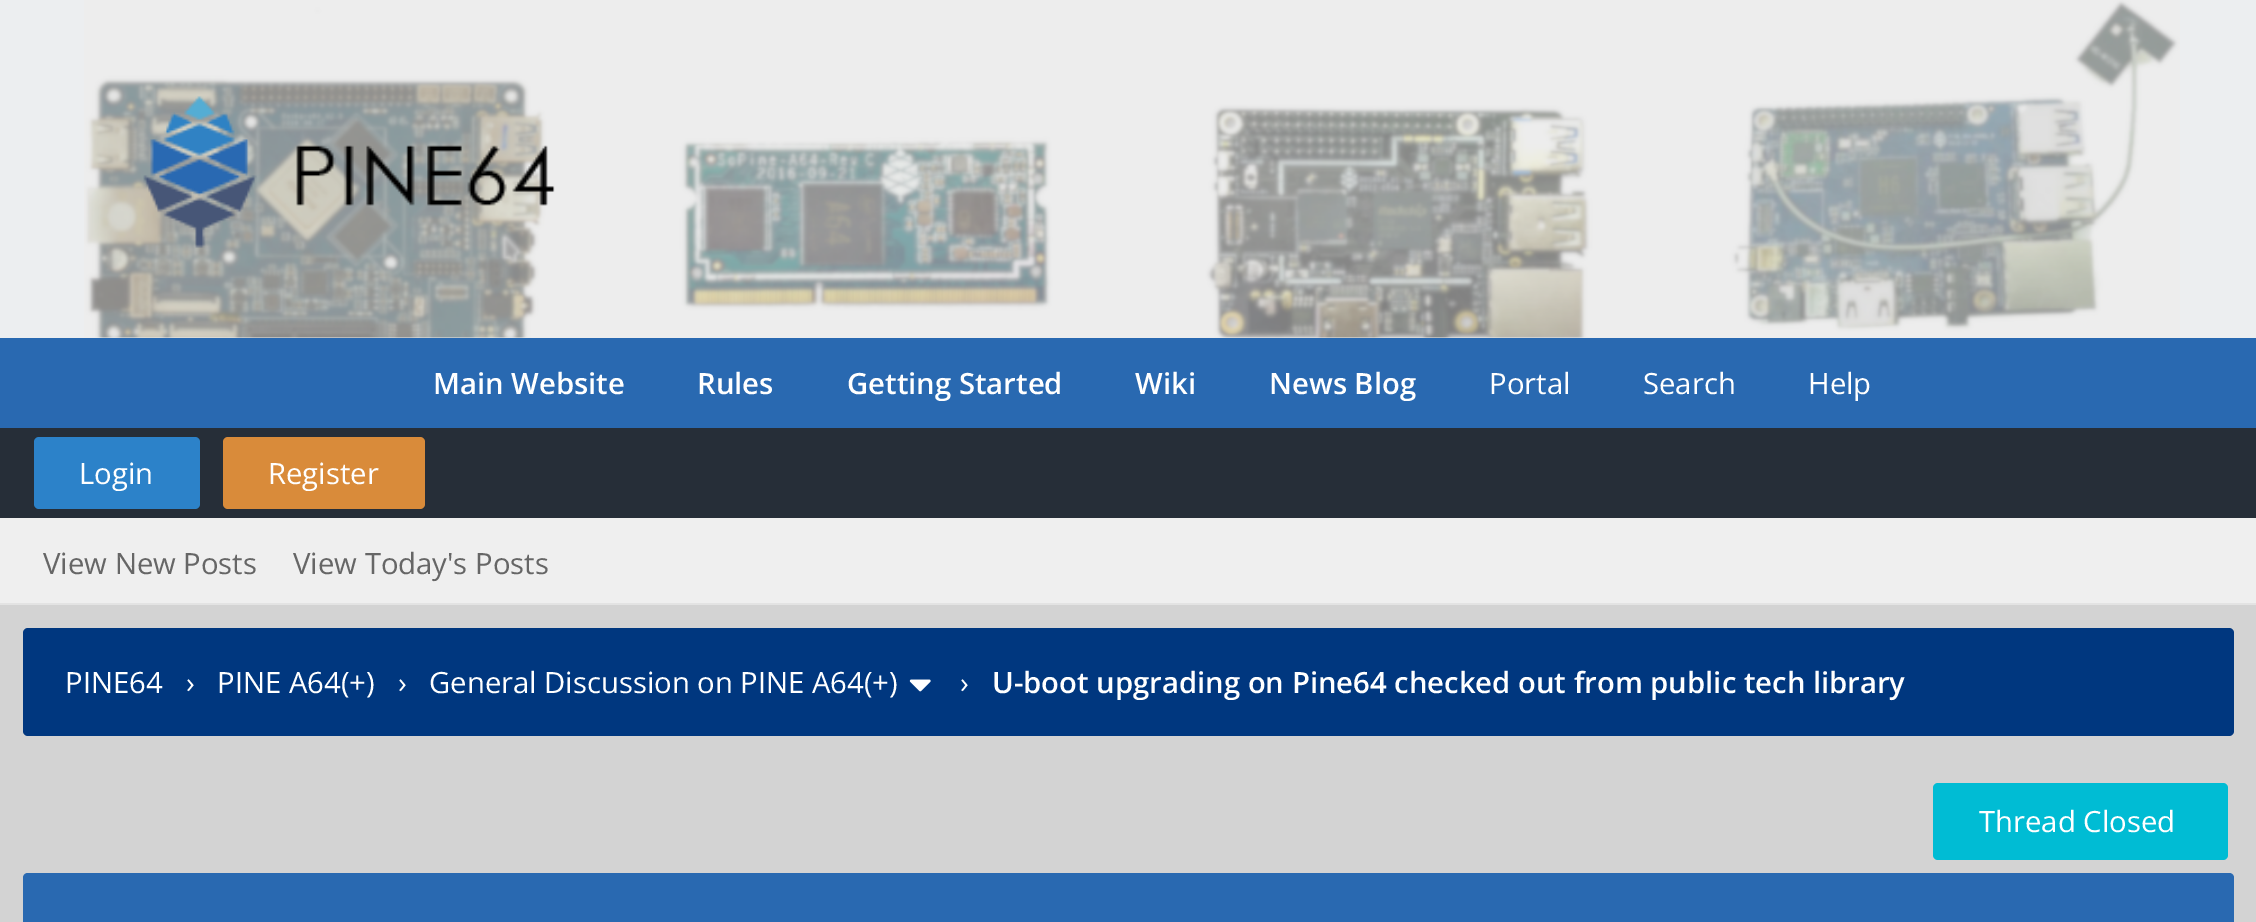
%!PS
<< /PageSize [2256 922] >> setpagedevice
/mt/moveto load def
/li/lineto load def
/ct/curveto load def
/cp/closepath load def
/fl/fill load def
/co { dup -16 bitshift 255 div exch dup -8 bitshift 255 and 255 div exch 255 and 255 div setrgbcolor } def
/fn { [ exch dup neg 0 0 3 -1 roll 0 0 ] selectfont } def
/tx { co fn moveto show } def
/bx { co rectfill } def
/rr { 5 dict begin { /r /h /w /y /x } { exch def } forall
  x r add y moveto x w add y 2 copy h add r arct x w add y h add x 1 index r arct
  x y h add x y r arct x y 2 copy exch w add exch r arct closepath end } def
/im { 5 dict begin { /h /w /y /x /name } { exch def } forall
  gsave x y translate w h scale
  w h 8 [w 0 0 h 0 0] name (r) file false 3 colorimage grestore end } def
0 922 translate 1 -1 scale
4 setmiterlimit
0 0 2256 922 16#ECEEF0 bx
(media/1.raw) 84 0 2096 338 im
(media/2.raw) 143 96 412 152 im
0 338 2256 90 16#2969B1 bx
0 428 2256 90 16#262E38 bx
16#2C82C9 co
34 437 166 72 5 rr fl
16#D98B3A co
223 437 202 72 5 rr fl
0 518 2256 85 16#EFEFEF bx
0 603 2256 2 16#E3E3E3 bx
0 605 2256 317 16#D3D3D3 bx
16#00377F co
23 628 2211 108 5 rr fl
(media/3.raw) 909 679 22 13 im
16#00BCD4 co
1933 783 295 77 5 rr fl
16#2969B1 co
28 873 mt 2229 873 li 2232 873 2234 875 2234 878 ct 2234 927 li 23 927 li 23 878 li 23 875 25 873 28 873 ct cp fl
(Main Website) 433 394 /OpenSans-SemiBold 29.25 16#FFFFFF tx
(Rules) 697 394 /OpenSans-SemiBold 29.25 16#FFFFFF tx
(Getting Started) 847 394 /OpenSans-SemiBold 29.25 16#FFFFFF tx
(Wiki) 1135 394 /OpenSans-SemiBold 29.25 16#FFFFFF tx
(News Blog) 1269 394 /OpenSans-SemiBold 29.25 16#FFFFFF tx
(Portal) 1489 394 /OpenSans-Regular 29.25 16#FFFFFF tx
(Search) 1643 394 /OpenSans-Regular 29.25 16#FFFFFF tx
(Help) 1808 394 /OpenSans-Regular 29.25 16#FFFFFF tx
(Login) 79 484 /OpenSans-Regular 29.25 16#FFFFFF tx
(Register) 268 484 /OpenSans-Regular 29.25 16#FFFFFF tx
(View New Posts) 43 574 /OpenSans-Regular 29.25 16#666666 tx
(View Today's Posts) 293 574 /OpenSans-Regular 29.25 16#666666 tx
(PINE64) 65 693 /OpenSans-Regular 29.25 16#FFFFFF tx
(›) 186 693 /OpenSans-Regular 29.25 16#FFFFFF tx
(PINE A64\(+\)) 217 693 /OpenSans-Regular 29.25 16#FFFFFF tx
(›) 398 693 /OpenSans-Regular 29.25 16#FFFFFF tx
(General Discussion on PINE A64\(+\)) 429 693 /OpenSans-Regular 29.25 16#FFFFFF tx
(›) 960 693 /OpenSans-Regular 29.25 16#FFFFFF tx
(U-boot upgrading on Pine64 checked out from public tech library) 992 693 /OpenSans-SemiBold 29.25 16#FFFFFF tx
(Thread Closed) 1979 832 /OpenSans-Regular 29.25 16#FFFFFF tx
showpage
